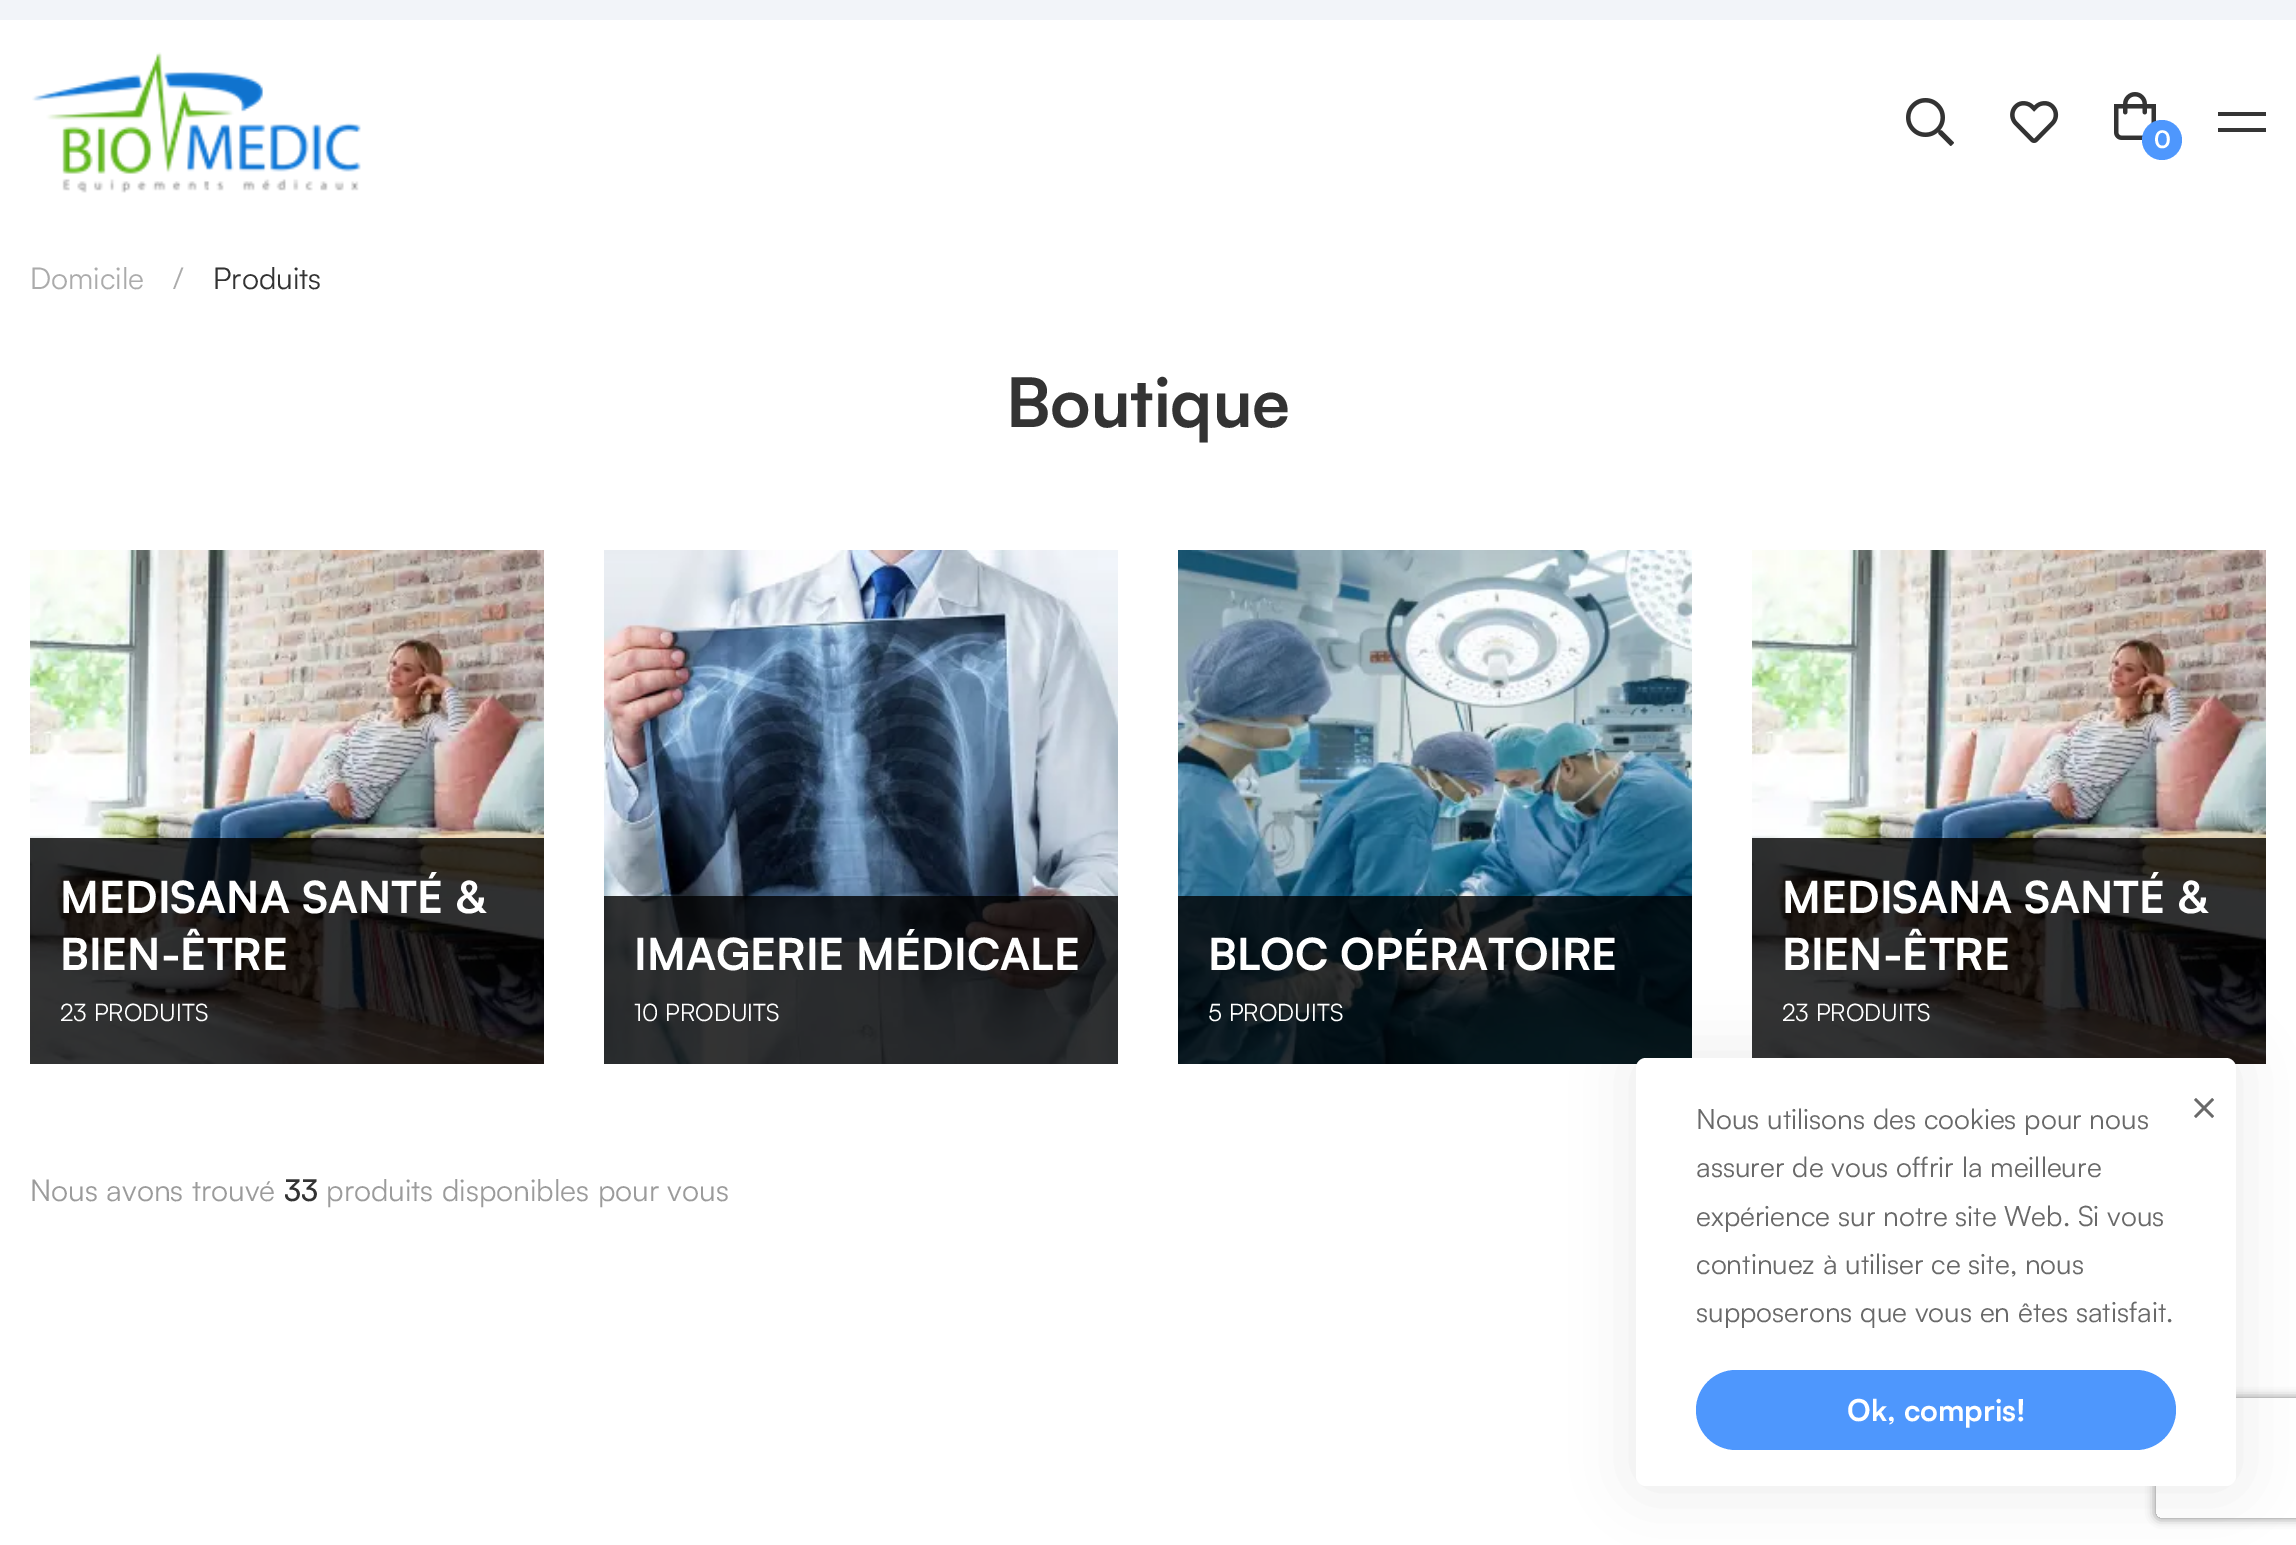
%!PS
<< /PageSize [2296 1545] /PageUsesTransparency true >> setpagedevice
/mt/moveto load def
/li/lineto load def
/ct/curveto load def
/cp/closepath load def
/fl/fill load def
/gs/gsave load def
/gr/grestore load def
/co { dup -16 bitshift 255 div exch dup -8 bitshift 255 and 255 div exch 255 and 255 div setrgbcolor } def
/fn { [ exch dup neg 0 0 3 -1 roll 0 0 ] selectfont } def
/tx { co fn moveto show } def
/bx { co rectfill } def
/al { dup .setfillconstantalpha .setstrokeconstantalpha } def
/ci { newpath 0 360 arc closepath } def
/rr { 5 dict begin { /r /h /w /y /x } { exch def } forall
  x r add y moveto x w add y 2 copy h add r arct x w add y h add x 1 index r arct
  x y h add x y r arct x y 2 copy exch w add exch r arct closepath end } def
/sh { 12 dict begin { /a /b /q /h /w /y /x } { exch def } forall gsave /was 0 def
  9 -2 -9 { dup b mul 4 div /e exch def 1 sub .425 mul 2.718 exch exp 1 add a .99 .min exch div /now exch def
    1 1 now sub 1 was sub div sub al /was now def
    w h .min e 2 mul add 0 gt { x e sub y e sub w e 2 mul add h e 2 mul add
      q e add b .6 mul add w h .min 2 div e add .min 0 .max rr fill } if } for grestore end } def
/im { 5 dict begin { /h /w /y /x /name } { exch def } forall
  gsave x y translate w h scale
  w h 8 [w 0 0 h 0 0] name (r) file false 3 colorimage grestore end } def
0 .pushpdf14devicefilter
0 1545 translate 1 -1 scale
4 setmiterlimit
0 0 2296 1545 16#FFFFFF bx
0 0 2296 20 16#F2F4F9 bx
(media/1.raw) 32 52 329 141 im
2218 112 48 4 16#353535 bx
2218 128 48 4 16#353535 bx
(media/2.raw) 1906 98 48 48 im
(media/3.raw) 2010 101 49 42 im
(media/4.raw) 2114 92 42 48 im
16#4E97FD co
2162 140 20 ci fl
(media/5.raw) 30 550 514 514 im
0.8 al
30 838 514 226 16#000000 bx
1 al
(media/6.raw) 604 550 514 514 im
0.8 al
604 896 514 168 16#000000 bx
1 al
(media/7.raw) 1178 550 514 514 im
0.8 al
1178 896 514 168 16#000000 bx
1 al
(media/8.raw) 1752 550 514 514 im
0.8 al
1752 838 514 226 16#000000 bx
1 al
16#333333 co
1636 1058 600 428 10 30 .1 sh
gs
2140 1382 mt 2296 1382 li 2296 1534 li 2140 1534 li cp 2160 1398 mt 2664 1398 li 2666 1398 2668 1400 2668 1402 ct 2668 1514 li 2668 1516 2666 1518 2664 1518 ct 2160 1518 li 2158 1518 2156 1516 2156 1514 ct 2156 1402 li 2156 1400 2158 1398 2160 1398 ct cp eoclip newpath
16#808080 co
2156 1398 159 120 4 5 1 sh
gr
16#FFFFFF co
1636 1058 600 428 10 rr fl
16#4E97FD co
1696 1370 480 80 40 rr fl
(media/9.raw) 2194 1098 20 20 im
(0) 2154 148 /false-Bold 24 16#FFFFFF tx
(Domicile) 30 289 /false-Regular 30 16#ABABAB tx
(/) 173 289 /false-Regular 30 16#ABABAB tx
(Produits) 213 289 /false-Regular 30 16#333333 tx
(Boutique) 1006 427 /false-Bold 68 16#333333 tx
(MEDISANA SANTÉ &) 60 913 /false-Bold 44 16#FFFFFF tx
(BIEN-ÊTRE) 60 970 /false-Bold 44 16#FFFFFF tx
(23 PRODUITS) 60 1021 /false-Regular 24 16#FFFFFF tx
(IMAGERIE MÉDICALE) 634 970 /false-Bold 44 16#FFFFFF tx
(10 PRODUITS) 634 1021 /false-Regular 24 16#FFFFFF tx
(BLOC OPÉRATOIRE) 1208 970 /false-Bold 44 16#FFFFFF tx
(5 PRODUITS) 1208 1021 /false-Regular 24 16#FFFFFF tx
(MEDISANA SANTÉ &) 1782 913 /false-Bold 44 16#FFFFFF tx
(BIEN-ÊTRE) 1782 970 /false-Bold 44 16#FFFFFF tx
(23 PRODUITS) 1782 1021 /false-Regular 24 16#FFFFFF tx
(Nous avons trouvé) 30 1201 /false-Regular 30 16#9B9B9B tx
(33) 284 1201 /Satoshi-Medium 30 16#333333 tx
(produits disponibles pour vous) 326 1201 /false-Regular 30 16#9B9B9B tx
(Nous utilisons des cookies pour nous) 1696 1129 /false-Regular 28 16#696969 tx
(assurer de vous offrir la meilleure) 1696 1177 /false-Regular 28 16#696969 tx
(expérience sur notre site Web. Si vous) 1696 1226 /false-Regular 28 16#696969 tx
(continuez à utiliser ce site, nous) 1696 1274 /false-Regular 28 16#696969 tx
(supposerons que vous en êtes satisfait.) 1696 1322 /false-Regular 28 16#696969 tx
(Ok, compris!) 1847 1421 /false-Bold 30 16#FFFFFF tx
.poppdf14devicefilter showpage
